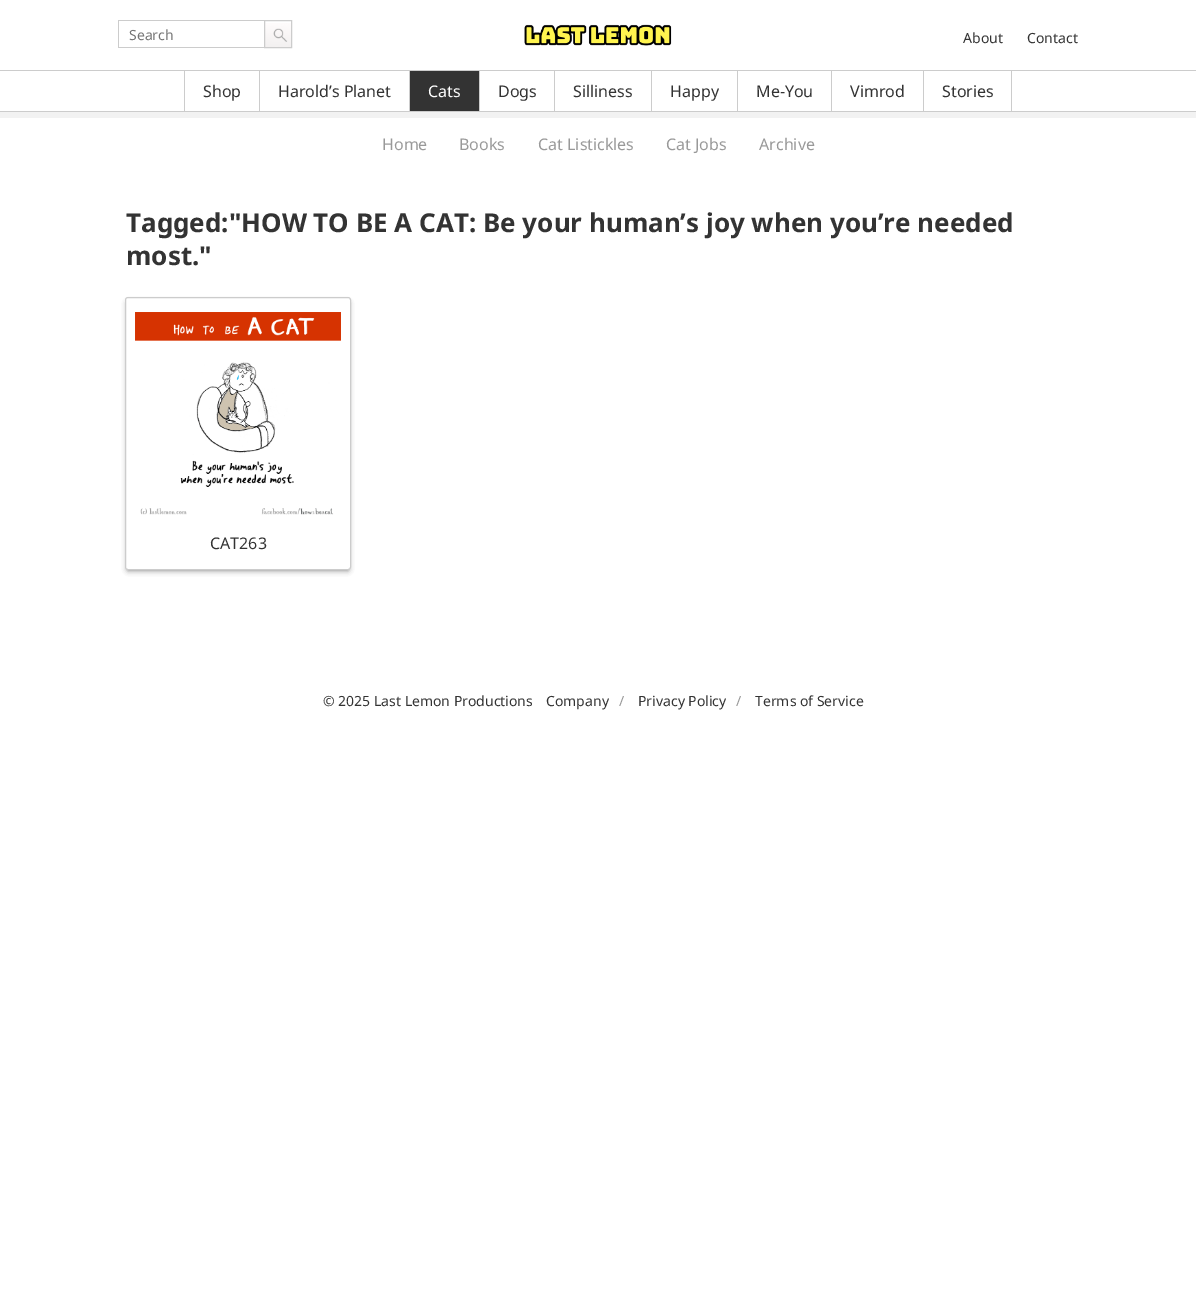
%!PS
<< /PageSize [1196 1296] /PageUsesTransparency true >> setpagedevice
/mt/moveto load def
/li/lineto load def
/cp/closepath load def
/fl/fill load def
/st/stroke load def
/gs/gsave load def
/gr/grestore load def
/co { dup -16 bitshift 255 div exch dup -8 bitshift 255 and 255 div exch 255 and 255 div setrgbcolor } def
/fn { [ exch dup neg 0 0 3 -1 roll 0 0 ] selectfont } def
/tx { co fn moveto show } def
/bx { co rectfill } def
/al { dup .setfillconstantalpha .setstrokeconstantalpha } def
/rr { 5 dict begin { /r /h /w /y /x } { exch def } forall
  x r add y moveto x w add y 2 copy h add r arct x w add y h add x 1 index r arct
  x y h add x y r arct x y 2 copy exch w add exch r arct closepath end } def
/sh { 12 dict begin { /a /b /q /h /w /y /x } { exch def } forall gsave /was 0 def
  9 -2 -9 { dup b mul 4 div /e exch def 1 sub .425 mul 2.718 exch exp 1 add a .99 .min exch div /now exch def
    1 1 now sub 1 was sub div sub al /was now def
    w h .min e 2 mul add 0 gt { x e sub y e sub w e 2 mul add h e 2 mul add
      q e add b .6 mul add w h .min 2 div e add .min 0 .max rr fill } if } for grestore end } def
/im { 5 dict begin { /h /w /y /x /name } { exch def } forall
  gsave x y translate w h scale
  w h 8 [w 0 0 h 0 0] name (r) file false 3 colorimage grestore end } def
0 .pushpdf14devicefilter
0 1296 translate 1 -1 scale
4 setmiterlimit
0 0 1196 1296 16#FFFFFF bx
118 20 146 1 16#CCCCCC bx
118 47 146 1 16#CCCCCC bx
118 20 1 28 16#CCCCCC bx
(media/1.raw) 265 23 26 24 im
264.5 20.5 27 27 rectstroke
(media/2.raw) 524 24 148 22 im
16#F2F2F2 co
-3 70 mt -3 118 li 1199 118 li 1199 70 li 1196 70 li 1196 112 li 0 112 li 0 70 li cp fl
0 70 1196 1 16#CCCCCC bx
0 111 1196 1 16#CCCCCC bx
259 71 1 40 16#CCCCCC bx
184 71 1 40 16#CCCCCC bx
409 71 1 40 16#CCCCCC bx
410 71 69 40 16#333333 bx
479 71 1 40 16#CCCCCC bx
554 71 1 40 16#CCCCCC bx
651 71 1 40 16#CCCCCC bx
737 71 1 40 16#CCCCCC bx
831 71 1 40 16#CCCCCC bx
923 71 1 40 16#CCCCCC bx
1011 71 1 40 16#CCCCCC bx
16#666666 co
128 303 220 267 0 3 1 sh
16#FFFFFF co
125.5 297.5 225 272 2.5 rr gs fl gr
16#CCCCCC co
st
(media/3.raw) 135 312 206 203 im
(Search) 129 40 /NotoSans-Regular 14 16#757575 tx
(About) 963 43 /NotoSans-Regular 14 16#333333 tx
(Contact) 1027 43 /NotoSans-Regular 14 16#333333 tx
(Shop) 203 97 /NotoSans-Regular 16 16#333333 tx
(Harold’s Planet) 278 97 /NotoSans-Regular 16 16#333333 tx
(Cats) 428 97 /NotoSans-Regular 16 16#FFFFFF tx
(Dogs) 498 97 /NotoSans-Regular 16 16#333333 tx
(Silliness) 573 97 /NotoSans-Regular 16 16#333333 tx
(Happy) 670 97 /NotoSans-Regular 16 16#333333 tx
(Me-You) 756 97 /NotoSans-Regular 16 16#333333 tx
(Vimrod) 850 97 /NotoSans-Regular 16 16#333333 tx
(Stories) 942 97 /NotoSans-Regular 16 16#333333 tx
(Home) 382 150 /NotoSans-Regular 16 16#999999 tx
(Books) 459 150 /NotoSans-Regular 16 16#999999 tx
(Cat Listickles) 538 150 /NotoSans-Regular 16 16#999999 tx
(Cat Jobs) 666 150 /NotoSans-Regular 16 16#999999 tx
(Archive) 759 150 /NotoSans-Regular 16 16#999999 tx
(Tagged:"HOW TO BE A CAT: Be your human’s joy when you’re needed) 126 232 /NotoSans-Bold 26 16#333333 tx
(most.") 126 265 /NotoSans-Bold 26 16#333333 tx
(CAT263) 210 549 /NotoSans-Regular 16 16#333333 tx
(© 2025 Last Lemon Productions) 323 706 /NotoSans-Regular 14 16#333333 tx
(Company) 546 706 /NotoSans-Regular 14 16#333333 tx
(/) 619 706 /NotoSans-Regular 14 16#999999 tx
(Privacy Policy) 638 706 /NotoSans-Regular 14 16#333333 tx
(/) 736 706 /NotoSans-Regular 14 16#999999 tx
(Terms of Service) 755 706 /NotoSans-Regular 14 16#333333 tx
.poppdf14devicefilter showpage
